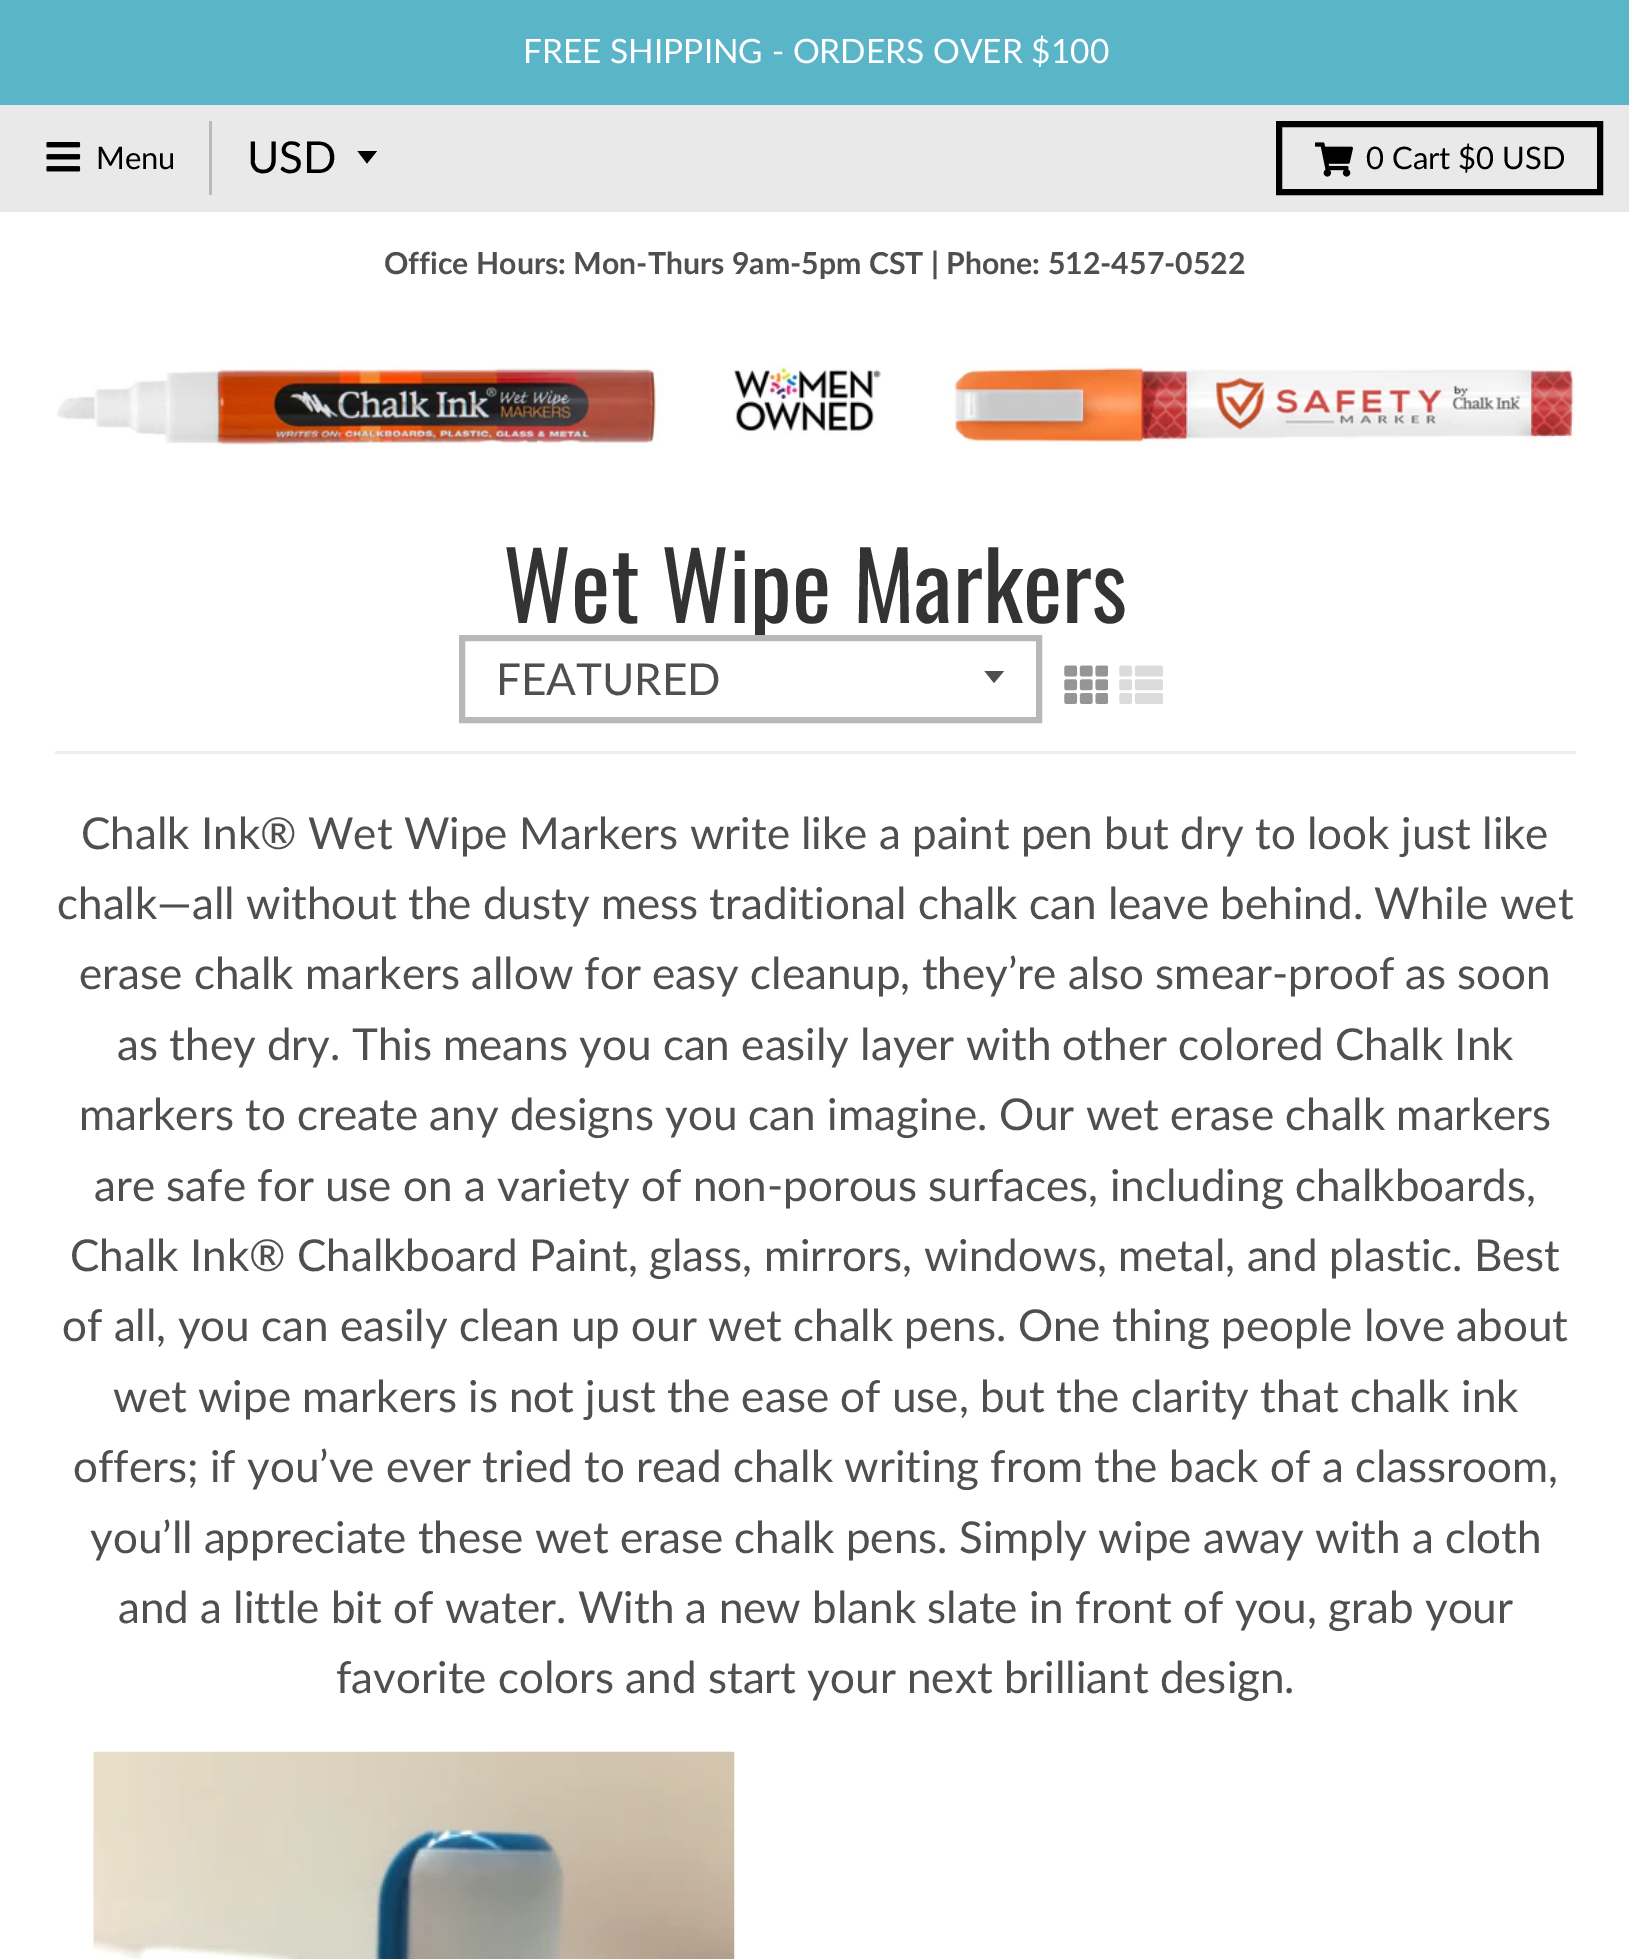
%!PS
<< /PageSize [1629 1959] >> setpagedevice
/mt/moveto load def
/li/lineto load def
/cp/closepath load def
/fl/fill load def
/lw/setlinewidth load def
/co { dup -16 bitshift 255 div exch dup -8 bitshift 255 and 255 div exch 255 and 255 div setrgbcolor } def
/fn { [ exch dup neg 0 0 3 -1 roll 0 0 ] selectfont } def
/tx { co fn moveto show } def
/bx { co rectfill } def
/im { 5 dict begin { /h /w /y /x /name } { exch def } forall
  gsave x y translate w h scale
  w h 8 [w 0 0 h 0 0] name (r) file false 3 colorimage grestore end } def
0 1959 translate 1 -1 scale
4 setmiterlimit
0 0 1629 1959 16#FFFFFF bx
0 0 1629 105 16#5AB5C9 bx
0 105 1629 107 16#E9E9E9 bx
209 121 3 74 16#BABABA bx
(media/1.raw) 46 142 35 30 im
16#000000 co
357.5 151 mt 367 163.5 li 377 151 li cp fl
6 lw
1279 124 321 68 rectstroke
(media/2.raw) 1315 142 38 35 im
(media/3.raw) 56 363 1520 83 im
55 751 1521 3 16#EDEDED bx
16#4F4F4F co
984.5 671 mt 994 683 li 1004 671 li cp fl
(media/4.raw) 1064 665 44 39 im
(media/5.raw) 1119 665 44 39 im
(media/6.raw) 93 1751 642 208 im
(FREE SHIPPING - ORDERS OVER $100) 523 63 /Lato-Regular 33.5 16#FFFFFF tx
(Menu) 96 169 /Lato-Regular 31 16#000000 tx
(USD) 247 173 /Lato-Regular 44 16#000000 tx
(0 Cart $0 USD) 1366 169 /Lato-Regular 31 16#000000 tx
(Office Hours: Mon-Thurs 9am-5pm CST | Phone: 512-457-0522) 384 274 /lato-Bold 30.25 16#4F4F4F tx
(Wet Wipe Markers) 503 623 /oswald-Regular 93.5 16#333333 tx
16#B8B8B8 co
462 638 577 82 rectstroke
(FEATURED) 496 695 /Lato-Regular 44 16#4F4F4F tx
(Chalk Ink® Wet Wipe Markers write like a paint pen but dry to look just like) 81 849 /Lato-Regular 44 16#4F4F4F tx
(chalk—all without the dusty mess traditional chalk can leave behind. While wet) 57 919 /Lato-Regular 44 16#4F4F4F tx
(erase chalk markers allow for easy cleanup, they’re also smear-proof as soon) 79 989 /Lato-Regular 44 16#4F4F4F tx
(as they dry. This means you can easily layer with other colored Chalk Ink) 117 1060 /Lato-Regular 44 16#4F4F4F tx
(markers to create any designs you can imagine. Our wet erase chalk markers) 79 1130 /Lato-Regular 44 16#4F4F4F tx
(are safe for use on a variety of non-porous surfaces, including chalkboards,) 94 1201 /Lato-Regular 44 16#4F4F4F tx
(Chalk Ink® Chalkboard Paint, glass, mirrors, windows, metal, and plastic. Best) 70 1271 /Lato-Regular 44 16#4F4F4F tx
(of all, you can easily clean up our wet chalk pens. One thing people love about) 62 1341 /Lato-Regular 44 16#4F4F4F tx
(wet wipe markers is not just the ease of use, but the clarity that chalk ink) 113 1412 /Lato-Regular 44 16#4F4F4F tx
(offers; if you’ve ever tried to read chalk writing from the back of a classroom,) 73 1482 /Lato-Regular 44 16#4F4F4F tx
(you’ll appreciate these wet erase chalk pens. Simply wipe away with a cloth) 90 1553 /Lato-Regular 44 16#4F4F4F tx
(and a little bit of water. With a new blank slate in front of you, grab your) 118 1623 /Lato-Regular 44 16#4F4F4F tx
(favorite colors and start your next brilliant design.) 336 1693 /Lato-Regular 44 16#4F4F4F tx
showpage
